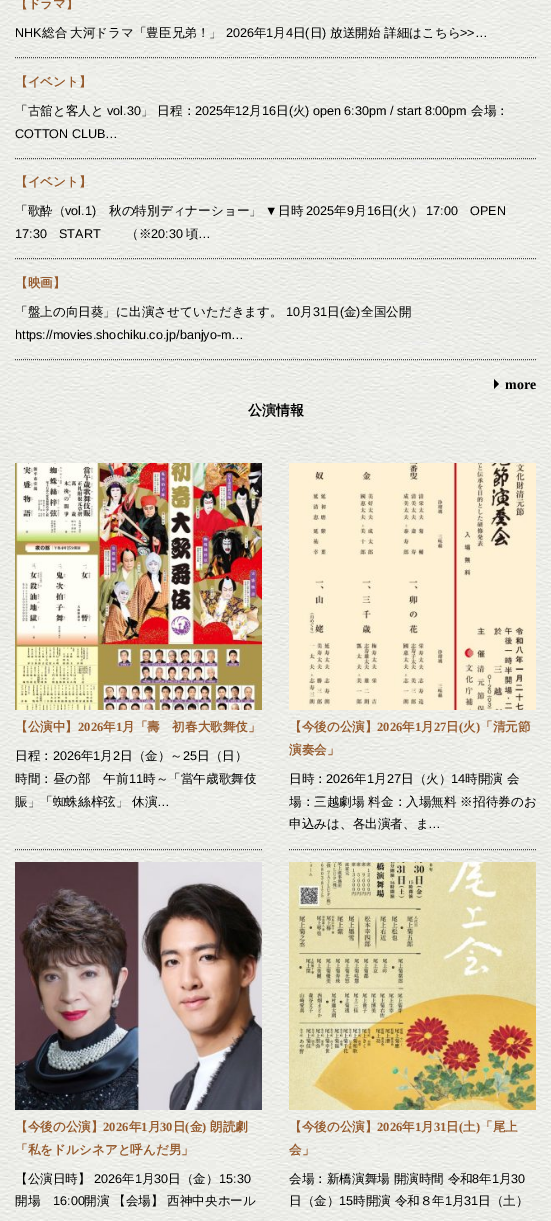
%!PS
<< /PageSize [551 1221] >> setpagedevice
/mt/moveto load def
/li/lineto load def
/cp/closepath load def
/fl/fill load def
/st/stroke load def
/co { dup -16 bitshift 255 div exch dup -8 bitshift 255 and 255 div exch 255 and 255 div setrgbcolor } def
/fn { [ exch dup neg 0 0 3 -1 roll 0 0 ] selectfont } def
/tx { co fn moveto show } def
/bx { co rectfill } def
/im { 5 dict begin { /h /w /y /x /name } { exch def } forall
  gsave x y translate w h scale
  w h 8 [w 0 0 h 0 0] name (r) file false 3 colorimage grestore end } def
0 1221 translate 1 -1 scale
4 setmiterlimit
0 0 551 1221 16#FFFFFF bx
(media/1.raw) 0 0 551 1221 im
16#444444 co
[1 1] 0 setdash
15 57.5 mt 536 57.5 li st
15 158.5 mt 536 158.5 li st
15 258.5 mt 536 258.5 li st
15 359.5 mt 536 359.5 li st
16#000000 co
494 389 mt 494 379 li 499 384 li cp fl
16#444444 co
15 849.5 mt 262 849.5 li st
(media/2.raw) 15 463 247 247 im
289 849.5 mt 536 849.5 li st
(media/3.raw) 289 463 247 247 im
(media/4.raw) 15 862 247 248 im
(media/5.raw) 289 862 247 248 im
(【ドラマ】) 15 8 /WenQuanYiZenHei-Bold 12.6 16#965B2E tx
(NHK) 15 37 /LiberationSans-Regular 12.6 16#000000 tx
(総合) 42 37 /WenQuanYiZenHei-Medium 12.6 16#000000 tx
(大河ドラマ「豊臣兄弟！」) 70 37 /WenQuanYiZenHei-Medium 12.6 16#000000 tx
(2026) 226 37 /LiberationSans-Regular 12.6 16#000000 tx
(年) 254 37 /WenQuanYiZenHei-Medium 12.6 16#000000 tx
(1) 266 37 /LiberationSans-Regular 12.6 16#000000 tx
(月) 273 37 /WenQuanYiZenHei-Medium 12.6 16#000000 tx
(4) 286 37 /LiberationSans-Regular 12.6 16#000000 tx
(日) 293 37 /WenQuanYiZenHei-Medium 12.6 16#000000 tx
(\() 305 37 /LiberationSans-Regular 12.6 16#000000 tx
(日) 310 37 /WenQuanYiZenHei-Medium 12.6 16#000000 tx
(\)) 322 37 /LiberationSans-Regular 12.6 16#000000 tx
(放送開始 詳細はこちら) 330 37 /WenQuanYiZenHei-Medium 12.6 16#000000 tx
(>>…) 460 37 /LiberationSans-Regular 12.6 16#000000 tx
(【イベント】) 15 86 /WenQuanYiZenHei-Bold 12.6 16#965B2E tx
(「古舘と客人と) 15 115 /WenQuanYiZenHei-Medium 12.6 16#000000 tx
(vol.30) 107 115 /LiberationSans-Regular 12.6 16#000000 tx
(」 日程：) 141 115 /WenQuanYiZenHei-Medium 12.6 16#000000 tx
(2025) 195 115 /LiberationSans-Regular 12.6 16#000000 tx
(年) 223 115 /WenQuanYiZenHei-Medium 12.6 16#000000 tx
(12) 235 115 /LiberationSans-Regular 12.6 16#000000 tx
(月) 249 115 /WenQuanYiZenHei-Medium 12.6 16#000000 tx
(16) 262 115 /LiberationSans-Regular 12.6 16#000000 tx
(日) 276 115 /WenQuanYiZenHei-Medium 12.6 16#000000 tx
(\() 289 115 /LiberationSans-Regular 12.6 16#000000 tx
(火) 293 115 /WenQuanYiZenHei-Medium 12.6 16#000000 tx
(\) open 6:30pm / start 8:00pm) 305 115 /LiberationSans-Regular 12.6 16#000000 tx
(会場：) 471 115 /WenQuanYiZenHei-Medium 12.6 16#000000 tx
(COTTON CLUB…) 15 138 /LiberationSans-Regular 12.6 16#000000 tx
(【イベント】) 15 186 /WenQuanYiZenHei-Bold 12.6 16#965B2E tx
(「歌酔（) 15 215 /WenQuanYiZenHei-Medium 12.6 16#000000 tx
(vol.1\)) 65 215 /LiberationSans-Regular 12.6 16#000000 tx
(秋の特別ディナーショー」) 109 215 /WenQuanYiZenHei-Medium 12.6 16#000000 tx
(▼) 265 215 /LiberationSans-Regular 12.6 16#000000 tx
(日時) 278 215 /WenQuanYiZenHei-Medium 12.6 16#000000 tx
(2025) 306 215 /LiberationSans-Regular 12.6 16#000000 tx
(年) 334 215 /WenQuanYiZenHei-Medium 12.6 16#000000 tx
(9) 347 215 /LiberationSans-Regular 12.6 16#000000 tx
(月) 354 215 /WenQuanYiZenHei-Medium 12.6 16#000000 tx
(16) 367 215 /LiberationSans-Regular 12.6 16#000000 tx
(日) 381 215 /WenQuanYiZenHei-Medium 12.6 16#000000 tx
(\() 393 215 /LiberationSans-Regular 12.6 16#000000 tx
(火）) 398 215 /WenQuanYiZenHei-Medium 12.6 16#000000 tx
(17:00) 426 215 /LiberationSans-Regular 12.6 16#000000 tx
(OPEN) 470 215 /LiberationSans-Regular 12.6 16#000000 tx
(17:30) 15 238 /LiberationSans-Regular 12.6 16#000000 tx
(START) 59 238 /LiberationSans-Regular 12.6 16#000000 tx
(（※) 126 238 /WenQuanYiZenHei-Medium 12.6 16#000000 tx
(20:30) 151 238 /LiberationSans-Regular 12.6 16#000000 tx
(頃) 186 238 /WenQuanYiZenHei-Medium 12.6 16#000000 tx
(…) 198 238 /LiberationSans-Regular 12.6 16#000000 tx
(【映画】) 15 287 /WenQuanYiZenHei-Bold 12.6 16#965B2E tx
(「盤上の向日葵」に出演させていただきます。) 15 316 /WenQuanYiZenHei-Medium 12.6 16#000000 tx
(10) 286 316 /LiberationSans-Regular 12.6 16#000000 tx
(月) 300 316 /WenQuanYiZenHei-Medium 12.6 16#000000 tx
(31) 313 316 /LiberationSans-Regular 12.6 16#000000 tx
(日) 327 316 /WenQuanYiZenHei-Medium 12.6 16#000000 tx
(\() 340 316 /LiberationSans-Regular 12.6 16#000000 tx
(金) 344 316 /WenQuanYiZenHei-Medium 12.6 16#000000 tx
(\)) 356 316 /LiberationSans-Regular 12.6 16#000000 tx
(全国公開) 361 316 /WenQuanYiZenHei-Medium 12.6 16#000000 tx
(https://movies.shochiku.co.jp/banjyo-m…) 15 339 /LiberationSans-Regular 12.6 16#000000 tx
(more) 505 389 /LiberationSerif-Bold 14 16#000000 tx
(公演情報) 248 415 /WenQuanYiZenHei-Bold 14 16#000000 tx
(【公演中】) 15 731 /WenQuanYiZenHei-Bold 12.6 16#965B2E tx
(2026) 78 731 /LiberationSerif-Bold 12.6 16#965B2E tx
(年) 103 731 /WenQuanYiZenHei-Bold 12.6 16#965B2E tx
(1) 116 731 /LiberationSerif-Bold 12.6 16#965B2E tx
(月「壽　初春大歌舞伎」) 122 731 /WenQuanYiZenHei-Bold 12.6 16#965B2E tx
(日程：) 15 760 /WenQuanYiZenHei-Medium 12.6 16#000000 tx
(2026) 53 760 /LiberationSans-Regular 12.6 16#000000 tx
(年) 81 760 /WenQuanYiZenHei-Medium 12.6 16#000000 tx
(1) 93 760 /LiberationSans-Regular 12.6 16#000000 tx
(月) 100 760 /WenQuanYiZenHei-Medium 12.6 16#000000 tx
(2) 113 760 /LiberationSans-Regular 12.6 16#000000 tx
(日（金）～) 120 760 /WenQuanYiZenHei-Medium 12.6 16#000000 tx
(25) 183 760 /LiberationSans-Regular 12.6 16#000000 tx
(日（日）) 197 760 /WenQuanYiZenHei-Medium 12.6 16#000000 tx
(時間：昼の部　午前) 15 783 /WenQuanYiZenHei-Medium 12.6 16#000000 tx
(11) 129 783 /LiberationSans-Regular 12.6 16#000000 tx
(時～「當午歳歌舞伎) 143 783 /WenQuanYiZenHei-Medium 12.6 16#000000 tx
(賑」「蜘蛛絲梓弦」 休演) 15 806 /WenQuanYiZenHei-Medium 12.6 16#000000 tx
(…) 157 806 /LiberationSans-Regular 12.6 16#000000 tx
(【今後の公演】) 289 731 /WenQuanYiZenHei-Bold 12.6 16#965B2E tx
(2026) 377 731 /LiberationSerif-Bold 12.6 16#965B2E tx
(年) 402 731 /WenQuanYiZenHei-Bold 12.6 16#965B2E tx
(1) 415 731 /LiberationSerif-Bold 12.6 16#965B2E tx
(月) 421 731 /WenQuanYiZenHei-Bold 12.6 16#965B2E tx
(27) 434 731 /LiberationSerif-Bold 12.6 16#965B2E tx
(日) 446 731 /WenQuanYiZenHei-Bold 12.6 16#965B2E tx
(\() 459 731 /LiberationSerif-Bold 12.6 16#965B2E tx
(火) 463 731 /WenQuanYiZenHei-Bold 12.6 16#965B2E tx
(\)) 476 731 /LiberationSerif-Bold 12.6 16#965B2E tx
(「清元節) 480 731 /WenQuanYiZenHei-Bold 12.6 16#965B2E tx
(演奏会」) 289 754 /WenQuanYiZenHei-Bold 12.6 16#965B2E tx
(日時：) 289 783 /WenQuanYiZenHei-Medium 12.6 16#000000 tx
(2026) 326 783 /LiberationSans-Regular 12.6 16#000000 tx
(年) 354 783 /WenQuanYiZenHei-Medium 12.6 16#000000 tx
(1) 367 783 /LiberationSans-Regular 12.6 16#000000 tx
(月) 374 783 /WenQuanYiZenHei-Medium 12.6 16#000000 tx
(27) 387 783 /LiberationSans-Regular 12.6 16#000000 tx
(日（火）) 401 783 /WenQuanYiZenHei-Medium 12.6 16#000000 tx
(14) 451 783 /LiberationSans-Regular 12.6 16#000000 tx
(時開演 会) 465 783 /WenQuanYiZenHei-Medium 12.6 16#000000 tx
(場：三越劇場 料金：入場無料 ※招待券のお) 289 806 /WenQuanYiZenHei-Medium 12.6 16#000000 tx
(申込みは、各出演者、ま) 289 828 /WenQuanYiZenHei-Medium 12.6 16#000000 tx
(…) 428 828 /LiberationSans-Regular 12.6 16#000000 tx
(【今後の公演】) 15 1131 /WenQuanYiZenHei-Bold 12.6 16#965B2E tx
(2026) 103 1131 /LiberationSerif-Bold 12.6 16#965B2E tx
(年) 129 1131 /WenQuanYiZenHei-Bold 12.6 16#965B2E tx
(1) 141 1131 /LiberationSerif-Bold 12.6 16#965B2E tx
(月) 148 1131 /WenQuanYiZenHei-Bold 12.6 16#965B2E tx
(30) 160 1131 /LiberationSerif-Bold 12.6 16#965B2E tx
(日) 173 1131 /WenQuanYiZenHei-Bold 12.6 16#965B2E tx
(\() 185 1131 /LiberationSerif-Bold 12.6 16#965B2E tx
(金) 190 1131 /WenQuanYiZenHei-Bold 12.6 16#965B2E tx
(\)) 202 1131 /LiberationSerif-Bold 12.6 16#965B2E tx
(朗読劇) 210 1131 /WenQuanYiZenHei-Bold 12.6 16#965B2E tx
(「私をドルシネアと呼んだ男」) 15 1154 /WenQuanYiZenHei-Bold 12.6 16#965B2E tx
(【公演日時】) 15 1183 /WenQuanYiZenHei-Medium 12.6 16#000000 tx
(2026) 94 1183 /LiberationSans-Regular 12.6 16#000000 tx
(年) 122 1183 /WenQuanYiZenHei-Medium 12.6 16#000000 tx
(1) 135 1183 /LiberationSans-Regular 12.6 16#000000 tx
(月) 142 1183 /WenQuanYiZenHei-Medium 12.6 16#000000 tx
(30) 154 1183 /LiberationSans-Regular 12.6 16#000000 tx
(日（金）) 168 1183 /WenQuanYiZenHei-Medium 12.6 16#000000 tx
(15:30) 219 1183 /LiberationSans-Regular 12.6 16#000000 tx
(開場) 15 1205 /WenQuanYiZenHei-Medium 12.6 16#000000 tx
(16:00) 53 1205 /LiberationSans-Regular 12.6 16#000000 tx
(開演 【会場】 西神中央ホール) 84 1205 /WenQuanYiZenHei-Medium 12.6 16#000000 tx
(【今後の公演】) 289 1131 /WenQuanYiZenHei-Bold 12.6 16#965B2E tx
(2026) 377 1131 /LiberationSerif-Bold 12.6 16#965B2E tx
(年) 402 1131 /WenQuanYiZenHei-Bold 12.6 16#965B2E tx
(1) 415 1131 /LiberationSerif-Bold 12.6 16#965B2E tx
(月) 421 1131 /WenQuanYiZenHei-Bold 12.6 16#965B2E tx
(31) 434 1131 /LiberationSerif-Bold 12.6 16#965B2E tx
(日) 446 1131 /WenQuanYiZenHei-Bold 12.6 16#965B2E tx
(\() 459 1131 /LiberationSerif-Bold 12.6 16#965B2E tx
(土) 463 1131 /WenQuanYiZenHei-Bold 12.6 16#965B2E tx
(\)) 476 1131 /LiberationSerif-Bold 12.6 16#965B2E tx
(「尾上) 480 1131 /WenQuanYiZenHei-Bold 12.6 16#965B2E tx
(会」) 289 1154 /WenQuanYiZenHei-Bold 12.6 16#965B2E tx
(会場：新橋演舞場 開演時間 令和) 289 1183 /WenQuanYiZenHei-Medium 12.6 16#000000 tx
(8) 472 1183 /LiberationSans-Regular 12.6 16#000000 tx
(年) 479 1183 /WenQuanYiZenHei-Medium 12.6 16#000000 tx
(1) 492 1183 /LiberationSans-Regular 12.6 16#000000 tx
(月) 499 1183 /WenQuanYiZenHei-Medium 12.6 16#000000 tx
(30) 511 1183 /LiberationSans-Regular 12.6 16#000000 tx
(日（金）) 289 1205 /WenQuanYiZenHei-Medium 12.6 16#000000 tx
(15) 339 1205 /LiberationSans-Regular 12.6 16#000000 tx
(時開演 令和８年) 353 1205 /WenQuanYiZenHei-Medium 12.6 16#000000 tx
(1) 445 1205 /LiberationSans-Regular 12.6 16#000000 tx
(月) 452 1205 /WenQuanYiZenHei-Medium 12.6 16#000000 tx
(31) 464 1205 /LiberationSans-Regular 12.6 16#000000 tx
(日（土）) 478 1205 /WenQuanYiZenHei-Medium 12.6 16#000000 tx
showpage
